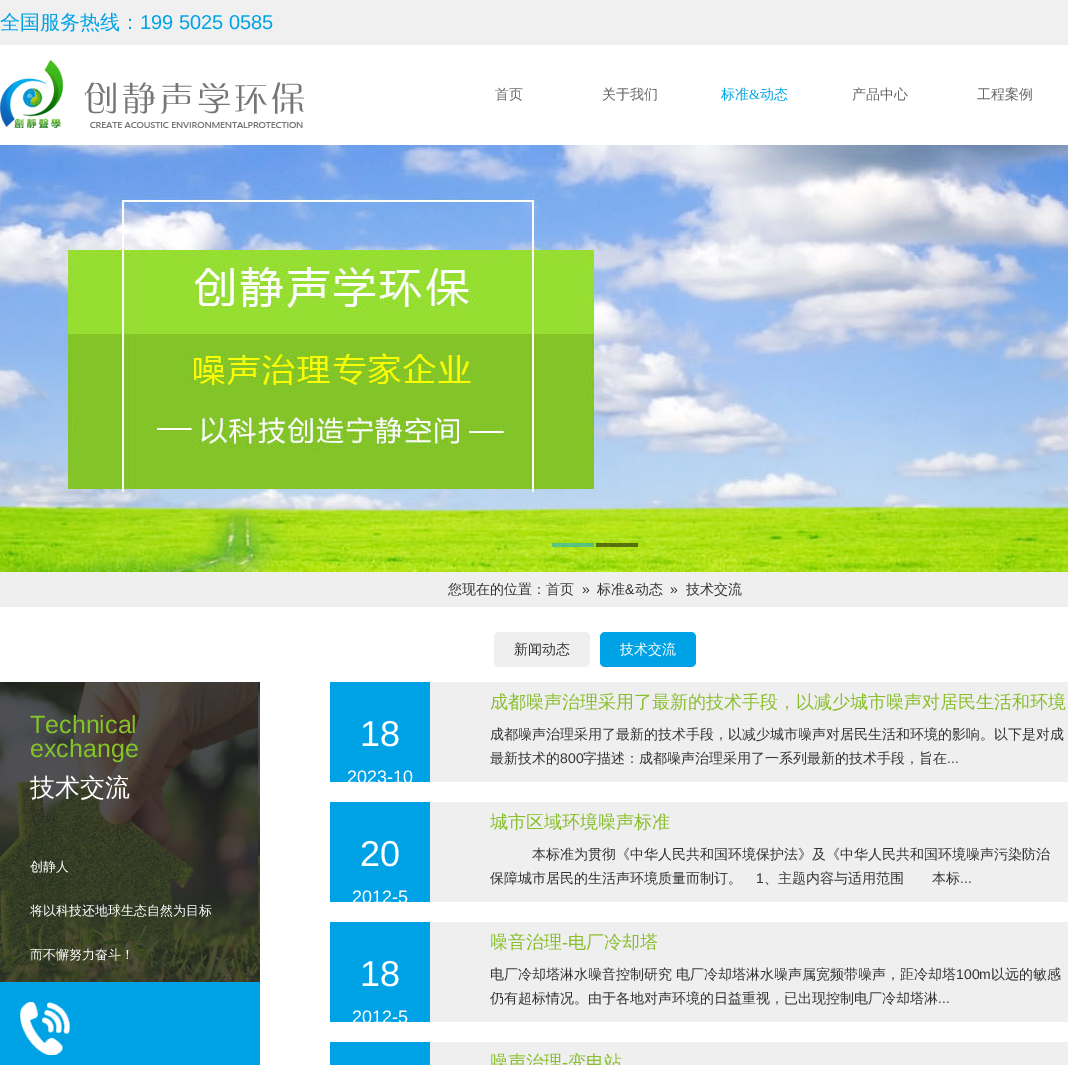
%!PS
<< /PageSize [1068 1065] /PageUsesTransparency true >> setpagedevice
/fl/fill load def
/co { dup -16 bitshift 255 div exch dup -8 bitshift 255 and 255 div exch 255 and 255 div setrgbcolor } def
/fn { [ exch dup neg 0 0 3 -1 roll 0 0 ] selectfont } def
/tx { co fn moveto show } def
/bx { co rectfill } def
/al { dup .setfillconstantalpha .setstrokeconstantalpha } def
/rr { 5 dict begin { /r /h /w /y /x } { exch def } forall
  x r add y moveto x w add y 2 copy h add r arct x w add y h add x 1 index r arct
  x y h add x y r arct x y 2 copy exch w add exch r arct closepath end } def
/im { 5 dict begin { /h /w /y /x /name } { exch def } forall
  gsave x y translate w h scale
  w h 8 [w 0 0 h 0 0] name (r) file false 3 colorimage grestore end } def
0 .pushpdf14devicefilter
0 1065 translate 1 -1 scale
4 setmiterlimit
0 0 1068 1065 16#FFFFFF bx
0 0 1068 45 16#F0F0F0 bx
(media/1.raw) 0 60 304 68 im
(media/2.raw) 0 145 1068 427 im
0.5 al
552 543 42 4 16#00A2E6 bx
596 543 42 4 16#000000 bx
1 al
0 572 1068 35 16#EFEFEF bx
494 632 96 35 5 rr fl
16#00A2E6 co
600 632 96 35 5 rr fl
(media/3.raw) 0 682 260 300 im
0 982 260 83 16#00A2E6 bx
(media/4.raw) 20 1002 50 53 im
430 682 638 100 16#EFEFEF bx
330 682 100 100 16#00A2E6 bx
430 802 638 100 16#EFEFEF bx
330 802 100 100 16#00A2E6 bx
430 922 638 100 16#EFEFEF bx
330 922 100 100 16#00A2E6 bx
430 1042 638 23 16#EFEFEF bx
330 1042 100 23 16#00A2E6 bx
(全国服务热线：) 0 29 /WenQuanYiZenHei-Medium 20 16#00A2E6 tx
(199 5025 0585) 140 29 /LiberationSans-Regular 20 16#00A2E6 tx
(首页) 495 99 /WenQuanYiZenHei-Medium 14 16#656565 tx
(关于我们) 602 99 /WenQuanYiZenHei-Medium 14 16#656565 tx
(标准) 721 99 /WenQuanYiZenHei-Medium 14 16#00A2E6 tx
(&) 749 99 /LiberationSerif-Regular 14 16#00A2E6 tx
(动态) 760 99 /WenQuanYiZenHei-Medium 14 16#00A2E6 tx
(产品中心) 852 99 /WenQuanYiZenHei-Medium 14 16#656565 tx
(工程案例) 977 99 /WenQuanYiZenHei-Medium 14 16#656565 tx
(您现在的位置：首页) 448 594 /WenQuanYiZenHei-Medium 14 16#333333 tx
(») 582 594 /LiberationSans-Regular 14 16#333333 tx
(标准) 597 594 /WenQuanYiZenHei-Medium 14 16#333333 tx
(&) 625 594 /LiberationSans-Regular 14 16#333333 tx
(动态) 635 594 /WenQuanYiZenHei-Medium 14 16#333333 tx
(») 670 594 /LiberationSans-Regular 14 16#333333 tx
(技术交流) 686 594 /WenQuanYiZenHei-Medium 14 16#333333 tx
(新闻动态) 514 654 /WenQuanYiZenHei-Medium 14 16#333333 tx
(技术交流) 620 654 /WenQuanYiZenHei-Medium 14 16#FFFFFF tx
(Technical) 30 733 /LiberationSans-Regular 25 16#83C428 tx
(exchange) 30 757 /LiberationSans-Regular 25 16#83C428 tx
(技术交流) 30 796 /WenQuanYiZenHei-Medium 25 16#FFFFFF tx
(创静人) 30 871 /WenQuanYiZenHei-Medium 13 16#FFFFFF tx
(将以科技还地球生态自然为目标) 30 915 /WenQuanYiZenHei-Medium 13 16#FFFFFF tx
(而不懈努力奋斗！) 30 959 /WenQuanYiZenHei-Medium 13 16#FFFFFF tx
(18) 360 746 /LiberationSans-Regular 36 16#FFFFFF tx
(2023-10) 347 783 /LiberationSans-Regular 18 16#FFFFFF tx
(成都噪声治理采用了最新的技术手段，以减少城市噪声对居民生活和环境) 490 708 /WenQuanYiZenHei-Medium 18 16#89BE2E tx
(成都噪声治理采用了最新的技术手段，以减少城市噪声对居民生活和环境的影响。以下是对成) 490 739 /WenQuanYiZenHei-Medium 14 16#333333 tx
(最新技术的) 490 763 /WenQuanYiZenHei-Medium 14 16#333333 tx
(800) 560 763 /LiberationSans-Regular 14 16#333333 tx
(字描述：成都噪声治理采用了一系列最新的技术手段，旨在) 583 763 /WenQuanYiZenHei-Medium 14 16#333333 tx
(...) 947 763 /LiberationSans-Regular 14 16#333333 tx
(20) 360 866 /LiberationSans-Regular 36 16#FFFFFF tx
(2012-5) 352 903 /LiberationSans-Regular 18 16#FFFFFF tx
(城市区域环境噪声标准) 490 828 /WenQuanYiZenHei-Medium 18 16#89BE2E tx
(本标准为贯彻《中华人民共和国环境保护法》及《中华人民共和国环境噪声污染防治) 532 859 /WenQuanYiZenHei-Medium 14 16#333333 tx
(保障城市居民的生活声环境质量而制订。) 490 883 /WenQuanYiZenHei-Medium 14 16#333333 tx
(1) 756 883 /LiberationSans-Regular 14 16#333333 tx
(、主题内容与适用范围　　本标) 764 883 /WenQuanYiZenHei-Medium 14 16#333333 tx
(...) 960 883 /LiberationSans-Regular 14 16#333333 tx
(18) 360 986 /LiberationSans-Regular 36 16#FFFFFF tx
(2012-5) 352 1023 /LiberationSans-Regular 18 16#FFFFFF tx
(噪音治理) 490 948 /WenQuanYiZenHei-Medium 18 16#89BE2E tx
(-) 562 948 /LiberationSerif-Regular 18 16#89BE2E tx
(电厂冷却塔) 568 948 /WenQuanYiZenHei-Medium 18 16#89BE2E tx
(电厂冷却塔淋水噪音控制研究 电厂冷却塔淋水噪声属宽频带噪声，距冷却塔) 490 979 /WenQuanYiZenHei-Medium 14 16#333333 tx
(100m) 956 979 /LiberationSans-Regular 14 16#333333 tx
(以远的敏感) 991 979 /WenQuanYiZenHei-Medium 14 16#333333 tx
(仍有超标情况。由于各地对声环境的日益重视，已出现控制电厂冷却塔淋) 490 1003 /WenQuanYiZenHei-Medium 14 16#333333 tx
(...) 938 1003 /LiberationSans-Regular 14 16#333333 tx
(噪声治理) 490 1068 /WenQuanYiZenHei-Medium 18 16#89BE2E tx
(-) 562 1068 /LiberationSerif-Regular 18 16#89BE2E tx
(变电站) 568 1068 /WenQuanYiZenHei-Medium 18 16#89BE2E tx
.poppdf14devicefilter showpage
